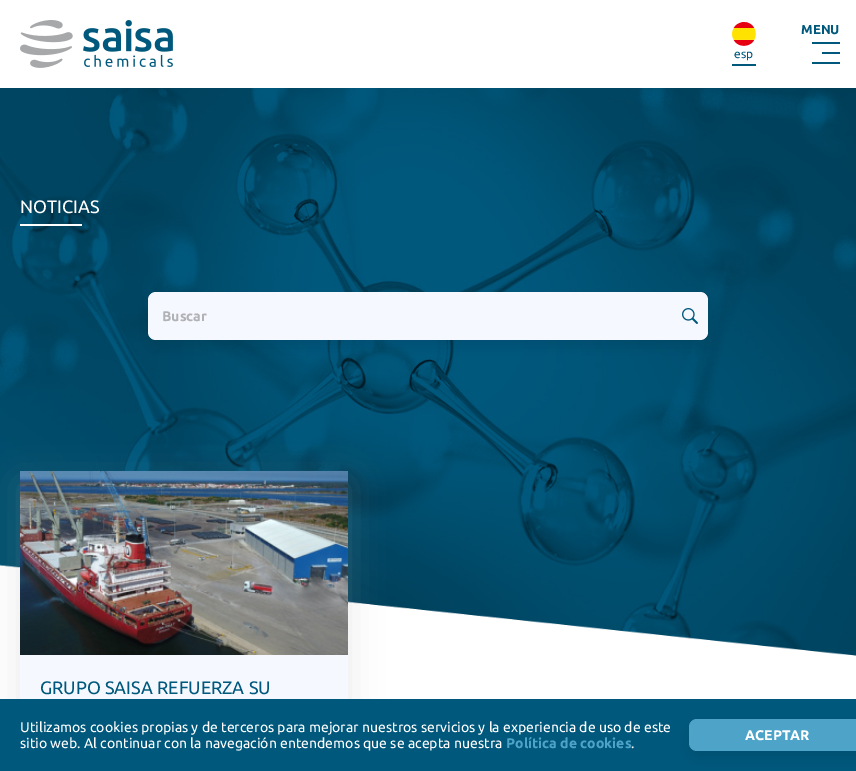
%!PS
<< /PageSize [856 771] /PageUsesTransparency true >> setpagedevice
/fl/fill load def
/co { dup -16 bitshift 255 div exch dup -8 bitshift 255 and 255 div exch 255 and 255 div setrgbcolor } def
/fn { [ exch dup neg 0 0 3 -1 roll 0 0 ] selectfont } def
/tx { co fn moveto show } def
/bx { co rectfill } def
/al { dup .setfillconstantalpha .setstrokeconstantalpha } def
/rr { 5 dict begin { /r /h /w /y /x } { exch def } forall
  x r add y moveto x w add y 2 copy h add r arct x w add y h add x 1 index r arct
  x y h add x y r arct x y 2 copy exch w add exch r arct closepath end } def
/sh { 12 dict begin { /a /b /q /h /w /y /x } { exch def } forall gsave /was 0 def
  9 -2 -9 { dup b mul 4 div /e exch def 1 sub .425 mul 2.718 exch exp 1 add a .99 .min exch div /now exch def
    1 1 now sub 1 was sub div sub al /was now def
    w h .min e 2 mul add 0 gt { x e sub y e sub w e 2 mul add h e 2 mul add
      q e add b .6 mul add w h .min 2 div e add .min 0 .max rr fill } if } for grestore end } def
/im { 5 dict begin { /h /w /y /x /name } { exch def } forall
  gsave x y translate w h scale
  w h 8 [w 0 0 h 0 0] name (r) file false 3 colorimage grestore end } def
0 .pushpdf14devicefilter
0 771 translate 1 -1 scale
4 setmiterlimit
0 0 856 771 16#FFFFFF bx
(media/1.raw) 20 20 153 48 im
812 42 28 2 16#00587C bx
822 52 18 2 16#00587C bx
812 62 28 2 16#00587C bx
(media/2.raw) 732 22 24 24 im
732 64 24 2 16#00587C bx
(media/3.raw) 0 88 856 568 im
20 224 62 2 16#FFFFFF bx
16#000000 co
148 299 560 48 8 7.5 .1 sh
16#F6F8FF co
148 292 560 48 8 rr fl
(media/4.raw) 682 308 16 16 im
16#A7A8AA co
20 483 328 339 0 17 .25 sh
20 655 328 44 16#F6F8FF bx
(media/5.raw) 20 471 328 184 im
0 699 856 72 16#00587C bx
16#000000 co
689 726 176 32 8 7.5 .1 sh
16#4DA4C8 co
689 719 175 32 8 rr fl
(MENU) 801 34 /Ubuntu-Bold 13 16#00587C tx
(esp) 734 58 /Ubuntu-Regular 12 16#00587C tx
(NOTICIAS) 20 213 /Ubuntu-Regular 18 16#FFFFFF tx
(Buscar) 162 321 /Ubuntu-Bold 14 16#B1B2B5 tx
(GRUPO SAISA REFUERZA SU) 40 694 /Ubuntu-Regular 18 16#00587C tx
(Utilizamos cookies propias y de terceros para mejorar nuestros servicios y la experiencia de uso de este) 20 732 /Ubuntu-Regular 14 16#FFFFFF tx
(sitio web. Al continuar con la navegación entendemos que se acepta nuestra) 20 748 /Ubuntu-Regular 14 16#FFFFFF tx
(Política de cookies) 506 748 /Ubuntu-Bold 14 16#4DA4C8 tx
(.) 631 748 /Ubuntu-Regular 14 16#FFFFFF tx
(ACEPTAR) 745 740 /Ubuntu-Bold 14 16#FFFFFF tx
.poppdf14devicefilter showpage
